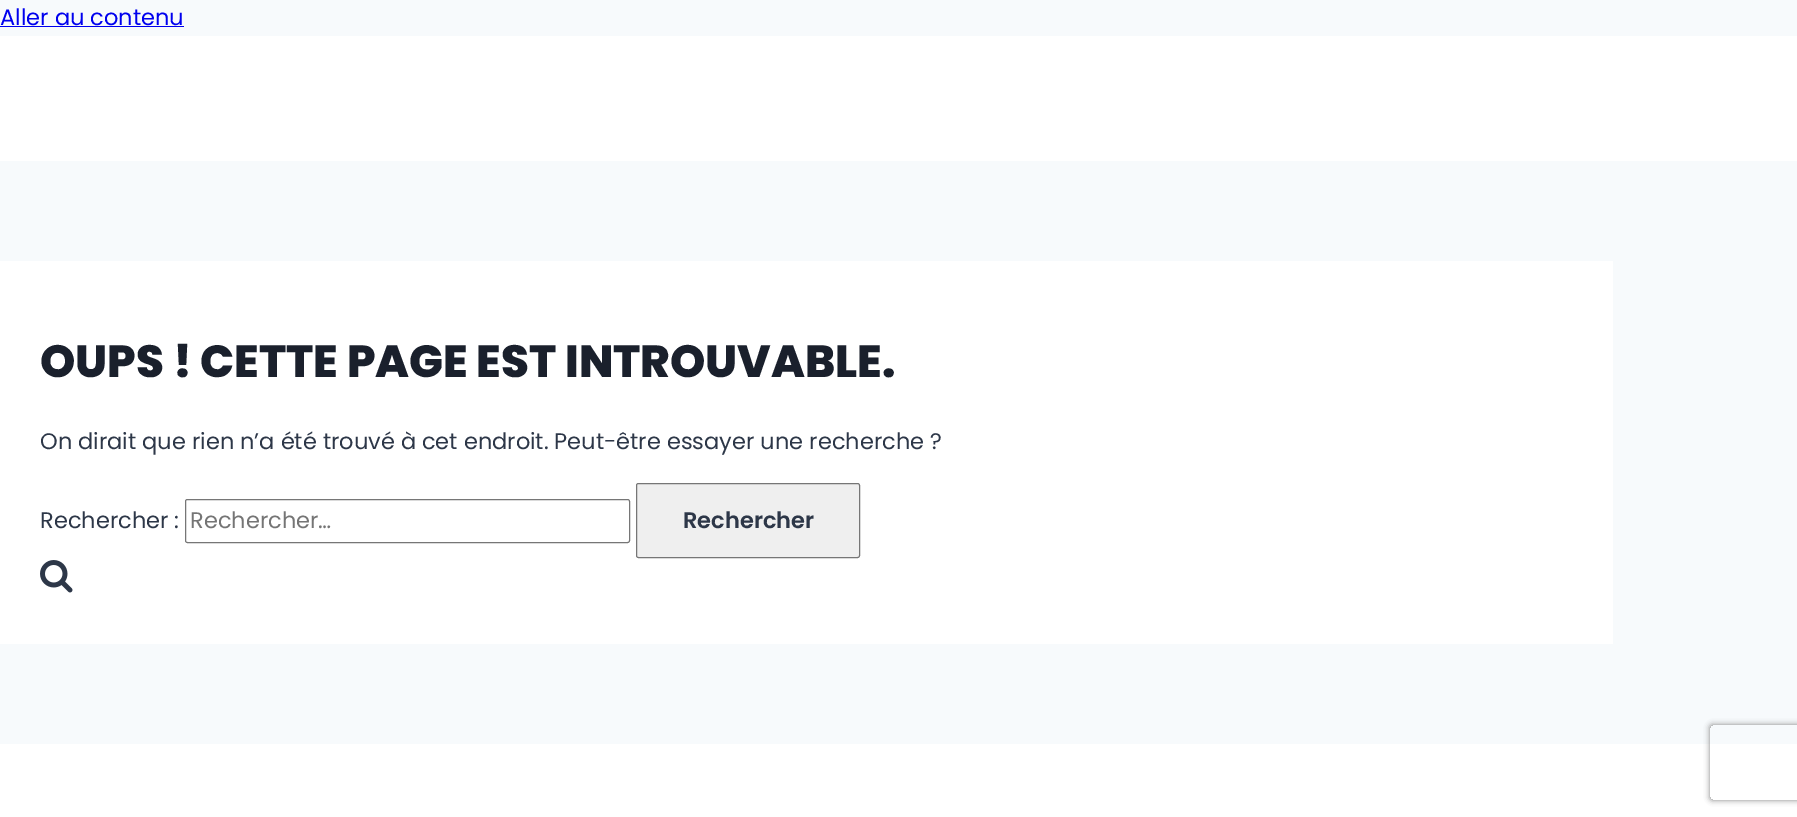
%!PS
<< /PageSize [1797 817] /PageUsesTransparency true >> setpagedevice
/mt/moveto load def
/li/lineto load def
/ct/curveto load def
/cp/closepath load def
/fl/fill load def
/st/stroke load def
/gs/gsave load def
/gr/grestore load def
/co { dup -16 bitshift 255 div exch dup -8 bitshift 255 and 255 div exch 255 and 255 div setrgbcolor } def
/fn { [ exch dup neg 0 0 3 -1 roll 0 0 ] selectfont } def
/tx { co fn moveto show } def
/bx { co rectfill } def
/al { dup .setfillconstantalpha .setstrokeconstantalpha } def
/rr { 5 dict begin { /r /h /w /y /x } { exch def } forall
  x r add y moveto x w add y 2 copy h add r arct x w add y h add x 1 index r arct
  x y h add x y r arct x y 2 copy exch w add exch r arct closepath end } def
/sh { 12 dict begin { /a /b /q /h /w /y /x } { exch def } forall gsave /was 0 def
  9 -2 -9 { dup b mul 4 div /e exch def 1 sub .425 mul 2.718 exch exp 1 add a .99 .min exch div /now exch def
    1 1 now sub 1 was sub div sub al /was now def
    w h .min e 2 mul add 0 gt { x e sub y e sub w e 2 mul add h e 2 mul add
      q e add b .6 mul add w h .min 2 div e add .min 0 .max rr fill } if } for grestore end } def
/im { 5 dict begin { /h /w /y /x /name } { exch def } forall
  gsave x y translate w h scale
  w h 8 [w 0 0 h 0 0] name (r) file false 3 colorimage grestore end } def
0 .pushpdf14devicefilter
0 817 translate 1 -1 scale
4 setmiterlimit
0 0 1797 817 16#F7FAFC bx
0 26 184 1 16#0000EE bx
0 36 1797 125 16#FFFFFF bx
0 261 1613 383 16#FFFFFF bx
16#767676 co
185.5 499.5 444 43 2 rr st
16#EFEFEF co
636.5 483.5 223 74 2 rr gs fl gr
16#767676 co
st
(media/1.raw) 40 560 33 33 im
0 744 1797 73 16#FFFFFF bx
gs
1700 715 mt 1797 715 li 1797 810 li 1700 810 li cp 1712.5 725 mt 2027.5 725 li 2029 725 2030 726 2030 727.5 ct 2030 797.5 li 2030 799 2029 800 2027.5 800 ct 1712.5 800 li 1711 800 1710 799 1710 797.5 ct 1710 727.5 li 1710 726 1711 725 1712.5 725 ct cp eoclip newpath
16#808080 co
1710 725 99 75 2.5 3 1 sh
gr
(Aller au contenu) 0 25 /Poppins-Regular 22.5 16#0000EE tx
(OUPS ! CETTE PAGE EST INTROUVABLE.) 40 377 /Poppins-ExtraBold 45 16#1A202C tx
(On dirait que rien n’a été trouvé à cet endroit. Peut-être essayer une recherche ?) 40 449 /Poppins-Regular 22.5 16#2D3748 tx
(Rechercher :) 40 528 /Poppins-Regular 22.5 16#2D3748 tx
(Rechercher…) 190 528 /Poppins-Regular 22.5 16#757575 tx
(Rechercher) 683 528 /Poppins-SemiBold 22.5 16#2D3748 tx
.poppdf14devicefilter showpage
